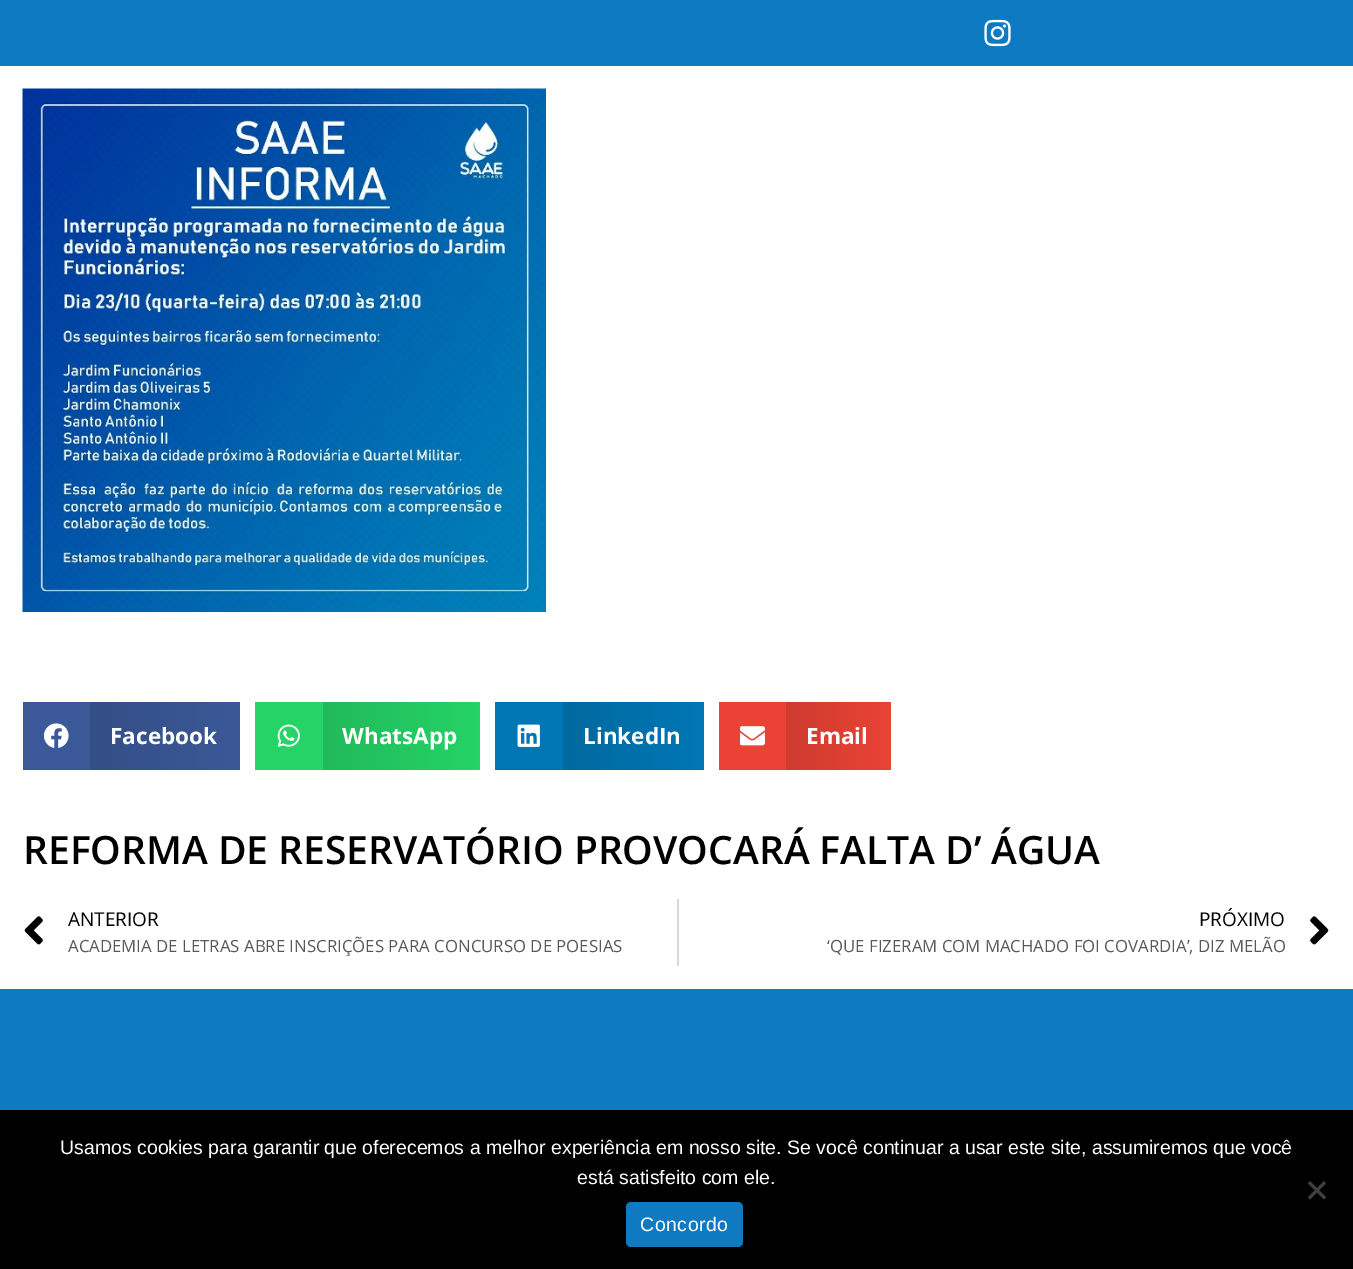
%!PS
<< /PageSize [1353 1269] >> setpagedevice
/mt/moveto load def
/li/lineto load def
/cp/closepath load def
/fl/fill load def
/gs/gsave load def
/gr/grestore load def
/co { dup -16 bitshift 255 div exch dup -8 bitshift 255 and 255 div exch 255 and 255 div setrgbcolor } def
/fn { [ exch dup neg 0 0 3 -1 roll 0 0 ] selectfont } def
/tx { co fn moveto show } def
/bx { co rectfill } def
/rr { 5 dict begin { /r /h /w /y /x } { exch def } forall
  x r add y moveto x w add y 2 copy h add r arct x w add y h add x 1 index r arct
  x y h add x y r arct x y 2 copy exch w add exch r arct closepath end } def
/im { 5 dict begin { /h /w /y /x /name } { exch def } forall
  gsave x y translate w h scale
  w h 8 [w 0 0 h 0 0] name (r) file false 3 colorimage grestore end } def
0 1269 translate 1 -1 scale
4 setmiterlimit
0 0 1353 1269 16#FFFFFF bx
0 0 1353 66 16#0E7AC1 bx
(media/1.raw) 984 19 27 28 im
(media/2.raw) 22 88 524 524 im
23 702 67 68 16#3B5998 bx
(media/3.raw) 44 723 25 25 im
gs 90 702 mt 240 702 li 240 770 li 90 770 li cp clip newpath
<< /ShadingType 2 /ColorSpace /DeviceRGB /Coords [90 736 240 736] /Extend [true true] /Function << /FunctionType 2 /Domain [0 1] /C0 [.204 .306 .525] /C1 [.231 .349 .596] /N 1 >> >> shfill gr
255 702 68 68 16#25D366 bx
(media/4.raw) 277 724 23 23 im
gs 323 702 mt 480 702 li 480 770 li 323 770 li cp clip newpath
<< /ShadingType 2 /ColorSpace /DeviceRGB /Coords [323 736 480 736] /Extend [true true] /Function << /FunctionType 2 /Domain [0 1] /C0 [.129 .729 .353] /C1 [.145 .827 .4] /N 1 >> >> shfill gr
495 702 68 68 16#0077B5 bx
(media/5.raw) 517 724 23 23 im
gs 563 702 mt 704 702 li 704 770 li 563 770 li cp clip newpath
<< /ShadingType 2 /ColorSpace /DeviceRGB /Coords [563 736 704 736] /Extend [true true] /Function << /FunctionType 2 /Domain [0 1] /C0 [0 .412 .624] /C1 [0 .467 .71] /N 1 >> >> shfill gr
719 702 67 68 16#EA4335 bx
(media/6.raw) 740 726 25 20 im
gs 786 702 mt 891 702 li 891 770 li 786 770 li cp clip newpath
<< /ShadingType 2 /ColorSpace /DeviceRGB /Coords [786 736 891 736] /Extend [true true] /Function << /FunctionType 2 /Domain [0 1] /C0 [.808 .231 .184] /C1 [.918 .263 .208] /N 1 >> >> shfill gr
(media/7.raw) 24 916 19 29 im
677 899 2 67 16#D5D8DC bx
(media/8.raw) 1310 916 19 29 im
0 989 1353 121 16#0E7AC1 bx
0 1110 1353 159 16#000000 bx
16#404040 co
1324 1181 mt 1326 1183.5 li 1310 1199.5 li 1308 1197 li cp fl
1308 1183.5 mt 1310 1181 li 1326 1197 li 1324 1199.5 li cp fl
16#0E7AC1 co
626 1202 117 45 5 rr fl
(Facebook) 110 744 /OpenSans-Bold 22.5 16#FFFFFF tx
(WhatsApp) 342 744 /OpenSans-Bold 22.5 16#FFFFFF tx
(LinkedIn) 583 744 /OpenSans-Bold 22.5 16#FFFFFF tx
(Email) 806 744 /OpenSans-Bold 22.5 16#FFFFFF tx
(REFORMA DE RESERVATÓRIO PROVOCARÁ FALTA D’ ÁGUA) 23 864 /OpenSans-SemiBold 39 16#000000 tx
(ANTERIOR) 68 926 /OpenSans-Regular 19 16#000000 tx
(ACADEMIA DE LETRAS ABRE INSCRIÇÕES PARA CONCURSO DE POESIAS) 68 952 /OpenSans-Regular 16.8 16#54595F tx
(PRÓXIMO) 1199 926 /OpenSans-Regular 19 16#000000 tx
(‘QUE FIZERAM COM MACHADO FOI COVARDIA’, DIZ MELÃO) 827 952 /OpenSans-Regular 16.8 16#54595F tx
(Usamos cookies para garantir que oferecemos a melhor experiência em nosso site. Se você continuar a usar este site, assumiremos que você) 60 1154 /LiberationSans-Regular 19.5 16#FFFFFF tx
(está satisfeito com ele.) 577 1184 /LiberationSans-Regular 19.5 16#FFFFFF tx
640 1231 mt .5 0 (Concordo) ashow
showpage
